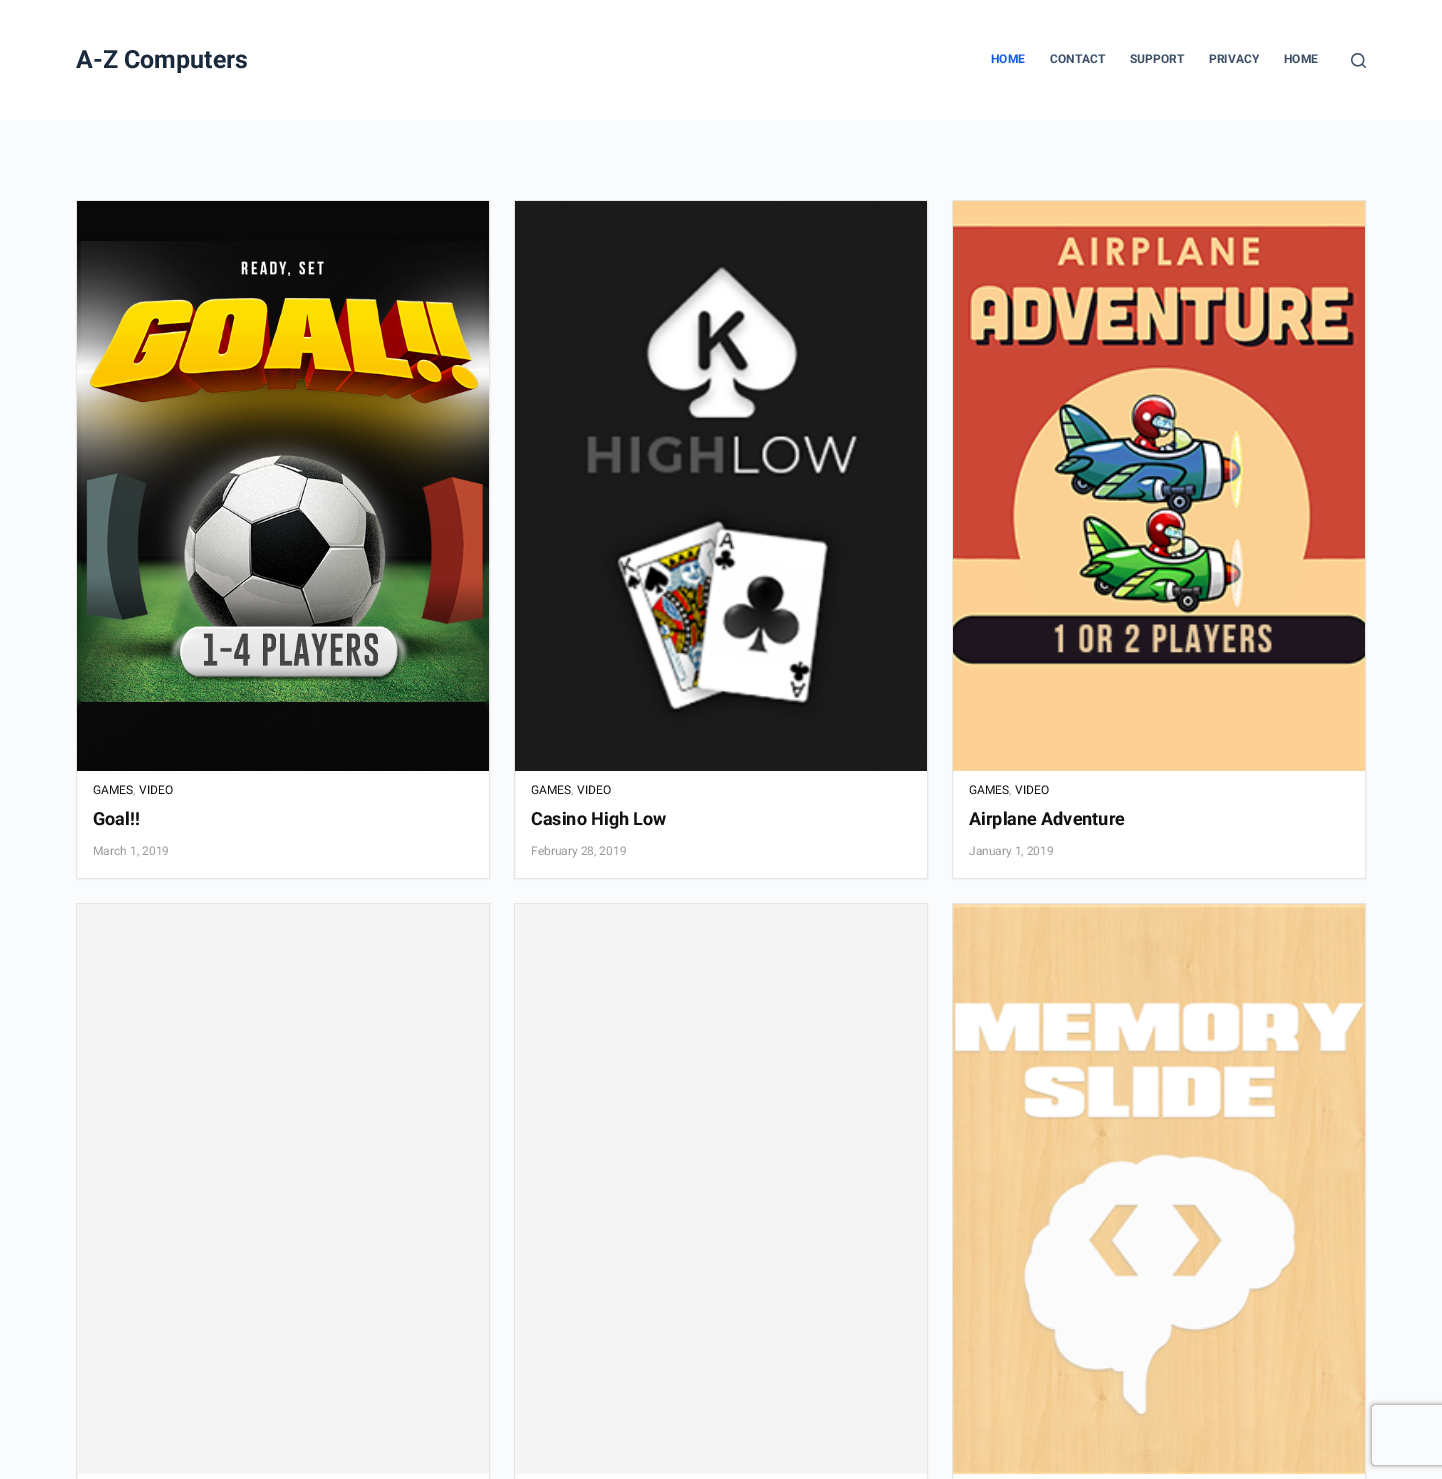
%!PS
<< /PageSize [1442 1479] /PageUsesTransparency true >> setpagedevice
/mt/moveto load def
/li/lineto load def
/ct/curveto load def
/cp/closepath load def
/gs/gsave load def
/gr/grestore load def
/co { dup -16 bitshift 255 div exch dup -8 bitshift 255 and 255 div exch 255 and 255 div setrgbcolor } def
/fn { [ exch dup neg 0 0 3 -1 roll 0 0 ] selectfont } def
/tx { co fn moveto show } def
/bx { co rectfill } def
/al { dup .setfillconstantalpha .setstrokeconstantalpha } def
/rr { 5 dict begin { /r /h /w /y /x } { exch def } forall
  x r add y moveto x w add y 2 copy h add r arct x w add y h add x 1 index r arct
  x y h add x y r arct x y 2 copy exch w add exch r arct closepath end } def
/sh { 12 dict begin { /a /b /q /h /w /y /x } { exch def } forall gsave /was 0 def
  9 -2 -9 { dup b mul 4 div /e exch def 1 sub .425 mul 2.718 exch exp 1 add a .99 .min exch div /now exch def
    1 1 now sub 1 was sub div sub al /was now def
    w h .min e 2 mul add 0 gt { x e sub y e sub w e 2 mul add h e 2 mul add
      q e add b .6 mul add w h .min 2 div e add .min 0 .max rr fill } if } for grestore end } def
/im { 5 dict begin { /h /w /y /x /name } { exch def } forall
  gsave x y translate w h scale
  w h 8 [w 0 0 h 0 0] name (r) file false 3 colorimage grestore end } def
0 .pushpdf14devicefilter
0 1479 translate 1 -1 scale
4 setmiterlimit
0 0 1442 1479 16#FAFBFC bx
0 0 1442 120 16#FFFFFF bx
(media/1.raw) 1351 53 15 15 im
16#000000 co
76 201 414 679 0 1 .04 sh
77 771 412 107 16#FFFFFF bx
16#E6E6E6 co
76.5 200.5 413 678 rectstroke
(media/2.raw) 77 201 412 570 im
16#000000 co
514 201 414 679 0 1 .04 sh
515 771 412 107 16#FFFFFF bx
16#E6E6E6 co
514.5 200.5 413 678 rectstroke
(media/3.raw) 515 201 412 570 im
16#000000 co
952 201 414 679 0 1 .04 sh
953 771 412 107 16#FFFFFF bx
16#E6E6E6 co
952.5 200.5 413 678 rectstroke
(media/4.raw) 953 201 412 570 im
77 1474 412 5 16#FFFFFF bx
16#E6E6E6 co
76.5 903.5 413 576 rectstroke
77 904 412 570 16#F5F5F5 bx
515 1474 412 5 16#FFFFFF bx
16#E6E6E6 co
514.5 903.5 413 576 rectstroke
515 904 412 570 16#F5F5F5 bx
953 1474 412 5 16#FFFFFF bx
16#E6E6E6 co
952.5 903.5 413 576 rectstroke
953 904 412 2 16#F5F5F5 bx
(media/5.raw) 953 904 412 570 im
gs
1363 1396 mt 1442 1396 li 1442 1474 li 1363 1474 li cp 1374 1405 mt 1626 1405 li 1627 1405 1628 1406 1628 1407 ct 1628 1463 li 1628 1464 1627 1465 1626 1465 ct 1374 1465 li 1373 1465 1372 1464 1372 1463 ct 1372 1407 li 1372 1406 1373 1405 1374 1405 ct cp eoclip newpath
16#808080 co
1372 1405 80 60 2 2.5 1 sh
gr
(A-Z Computers) 76 68 /Roboto-Bold 25 16#192A3D tx
(HOME) 991 63 /Roboto-Bold 12 16#1559ED tx
(CONTACT) 1050 63 /Roboto-Bold 12 16#3A4F66 tx
(SUPPORT) 1130 63 /Roboto-Bold 12 16#3A4F66 tx
(PRIVACY) 1209 63 /Roboto-Bold 12 16#3A4F66 tx
(HOME) 1284 63 /Roboto-Bold 12 16#3A4F66 tx
(GAMES) 93 794 /Roboto-Regular 12 16#111111 tx
(,) 133 794 /Roboto-Regular 12 16#999999 tx
(VIDEO) 139 794 /Roboto-Regular 12 16#111111 tx
(Goal!!) 93 825 /Roboto-Bold 18 16#111111 tx
(March 1, 2019) 93 855 /Roboto-Regular 12 16#999999 tx
(GAMES) 531 794 /Roboto-Regular 12 16#111111 tx
(,) 571 794 /Roboto-Regular 12 16#999999 tx
(VIDEO) 577 794 /Roboto-Regular 12 16#111111 tx
(Casino High Low) 531 825 /Roboto-Bold 18 16#111111 tx
(February 28, 2019) 531 855 /Roboto-Regular 12 16#999999 tx
(GAMES) 969 794 /Roboto-Regular 12 16#111111 tx
(,) 1009 794 /Roboto-Regular 12 16#999999 tx
(VIDEO) 1015 794 /Roboto-Regular 12 16#111111 tx
(Airplane Adventure) 969 825 /Roboto-Bold 18 16#111111 tx
(January 1, 2019) 969 855 /Roboto-Regular 12 16#999999 tx
.poppdf14devicefilter showpage
